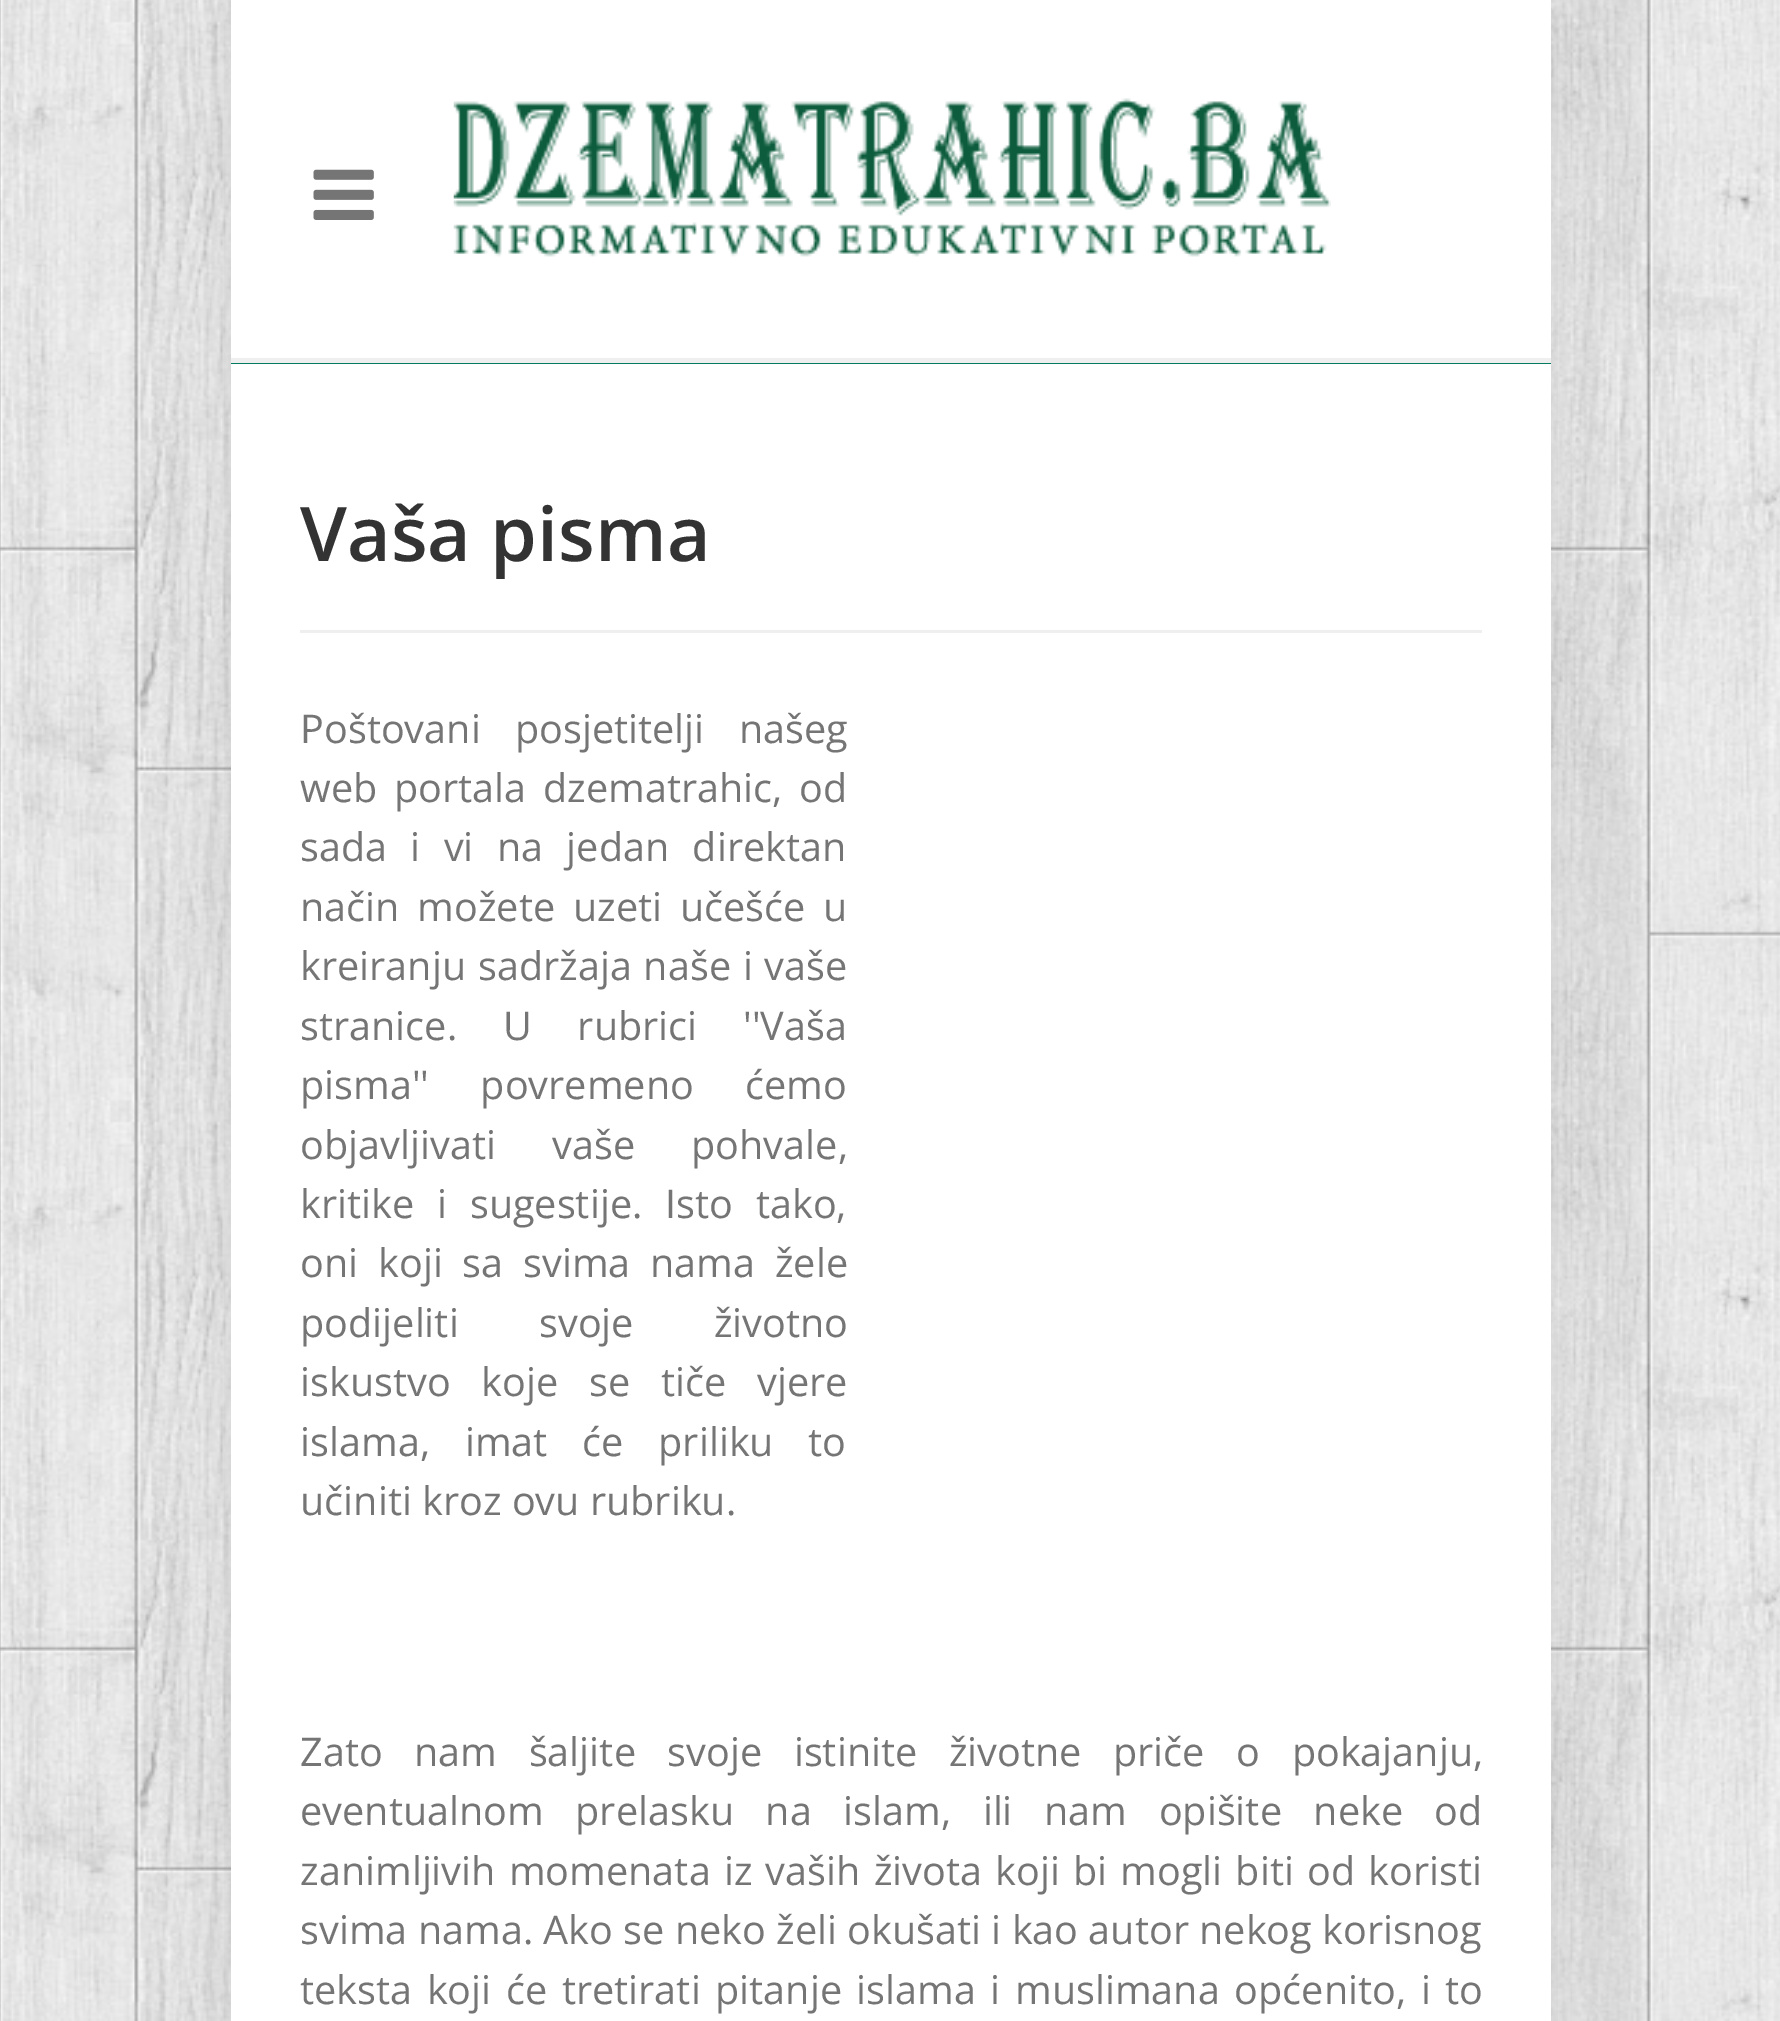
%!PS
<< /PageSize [1780 2021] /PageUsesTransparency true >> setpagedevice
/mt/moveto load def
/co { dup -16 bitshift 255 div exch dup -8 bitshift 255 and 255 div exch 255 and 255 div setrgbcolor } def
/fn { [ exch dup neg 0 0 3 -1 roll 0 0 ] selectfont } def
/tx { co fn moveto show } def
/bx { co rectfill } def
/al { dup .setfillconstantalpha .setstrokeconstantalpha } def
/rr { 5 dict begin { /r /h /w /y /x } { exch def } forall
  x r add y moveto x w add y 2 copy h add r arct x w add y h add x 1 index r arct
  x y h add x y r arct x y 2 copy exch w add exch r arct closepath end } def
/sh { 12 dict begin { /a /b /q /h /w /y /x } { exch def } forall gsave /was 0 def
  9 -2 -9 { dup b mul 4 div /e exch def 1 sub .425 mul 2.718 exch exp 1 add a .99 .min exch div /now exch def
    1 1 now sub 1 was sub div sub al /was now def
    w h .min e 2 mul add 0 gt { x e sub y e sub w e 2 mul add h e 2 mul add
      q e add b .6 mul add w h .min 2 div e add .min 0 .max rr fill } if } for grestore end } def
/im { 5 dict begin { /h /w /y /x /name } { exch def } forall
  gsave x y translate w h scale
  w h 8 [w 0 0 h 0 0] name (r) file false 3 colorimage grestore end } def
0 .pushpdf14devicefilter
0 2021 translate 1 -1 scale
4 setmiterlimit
0 0 1780 2021 16#FFFFFF bx
(media/1.raw) 0 0 1780 2021 im
16#000000 co
231 8 1320 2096 0 27.5 .1 sh
231 0 1320 358 16#FFFFFF bx
(media/2.raw) 313 169 61 51 im
(media/3.raw) 453 98 878 159 im
231 363 1320 1 16#057A5F bx
231 358 1320 5 16#EFEFEF bx
231 364 1320 1657 16#FFFFFF bx
300 630 1182 3 16#EFEFEF bx
(Vaša pisma) 300 561 /OpenSans-SemiBold 75.25 16#333333 tx
/OpenSans-Regular 39.6 fn
16#757575 co
300 743 mt 24 0 32 (Poštovani posjetitelji našeg) widthshow
300 802 mt 6.5 0 32 (web portala dzematrahic, od) widthshow
300 861 mt 13 0 32 (sada i vi na jedan direktan) widthshow
300 921 mt 7.5 0 32 (način možete uzeti učešće u) widthshow
300 980 mt 1.5 0 32 (kreiranju sadržaja naše i vaše) widthshow
300 1040 mt 35.5 0 32 (stranice. U rubrici ''Vaša) widthshow
300 1099 mt 41 0 32 (pisma'' povremeno ćemo) widthshow
300 1159 mt 46 0 32 (objavljivati vaše pohvale,) widthshow
300 1218 mt 12.5 0 32 (kritike i sugestije. Isto tako,) widthshow
300 1277 mt 9.5 0 32 (oni koji sa svima nama žele) widthshow
300 1337 mt 70 0 32 (podijeliti svoje životno) widthshow
300 1396 mt 20.5 0 32 (iskustvo koje se tiče vjere) widthshow
300 1456 mt 24.5 0 32 (islama, imat će priliku to) widthshow
(učiniti kroz ovu rubriku.) 300 1515 /OpenSans-Regular 39.6 16#757575 tx
300 1766 mt 21.25 0 32 (Zato nam šaljite svoje istinite životne priče o pokajanju,) widthshow
300 1825 mt 21.25 0 32 (eventualnom prelasku na islam, ili nam opišite neke od) widthshow
300 1885 mt 2.9 0 32 (zanimljivih momenata iz vaših života koji bi mogli biti od koristi) widthshow
(svima nama. Ako se neko želi okušati i kao autor nekog korisnog) 300 1944 /OpenSans-Regular 39.6 16#757575 tx
300 2004 mt 4.25 0 32 (teksta koji će tretirati pitanje islama i muslimana općenito, i to) widthshow
.poppdf14devicefilter showpage
